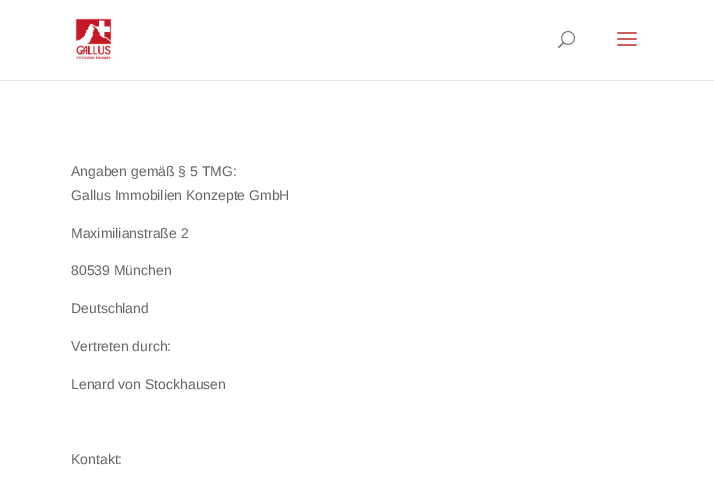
%!PS
<< /PageSize [714 492] >> setpagedevice
/co { dup -16 bitshift 255 div exch dup -8 bitshift 255 and 255 div exch 255 and 255 div setrgbcolor } def
/fn { [ exch dup neg 0 0 3 -1 roll 0 0 ] selectfont } def
/tx { co fn moveto show } def
/bx { co rectfill } def
/im { 5 dict begin { /h /w /y /x /name } { exch def } forall
  gsave x y translate w h scale
  w h 8 [w 0 0 h 0 0] name (r) file false 3 colorimage grestore end } def
0 492 translate 1 -1 scale
4 setmiterlimit
0 0 714 492 16#FFFFFF bx
0 80 714 1 16#E6E6E6 bx
(media/1.raw) 75 18 37 42 im
(media/2.raw) 558 31 17 18 im
(media/3.raw) 617 32 20 14 im
(Angaben gemäß § 5 TMG:) 71 176 /LiberationSans-Regular 14 16#666666 tx
(Gallus Immobilien Konzepte GmbH) 71 200 /LiberationSans-Regular 14 16#666666 tx
(Maximilianstraße 2) 71 238 /LiberationSans-Regular 14 16#666666 tx
(80539 München) 71 275 /LiberationSans-Regular 14 16#666666 tx
(Deutschland) 71 313 /LiberationSans-Regular 14 16#666666 tx
(Vertreten durch:) 71 351 /LiberationSans-Regular 14 16#666666 tx
(Lenard von Stockhausen) 71 389 /LiberationSans-Regular 14 16#666666 tx
(Kontakt:) 71 464 /LiberationSans-Regular 14 16#666666 tx
showpage
